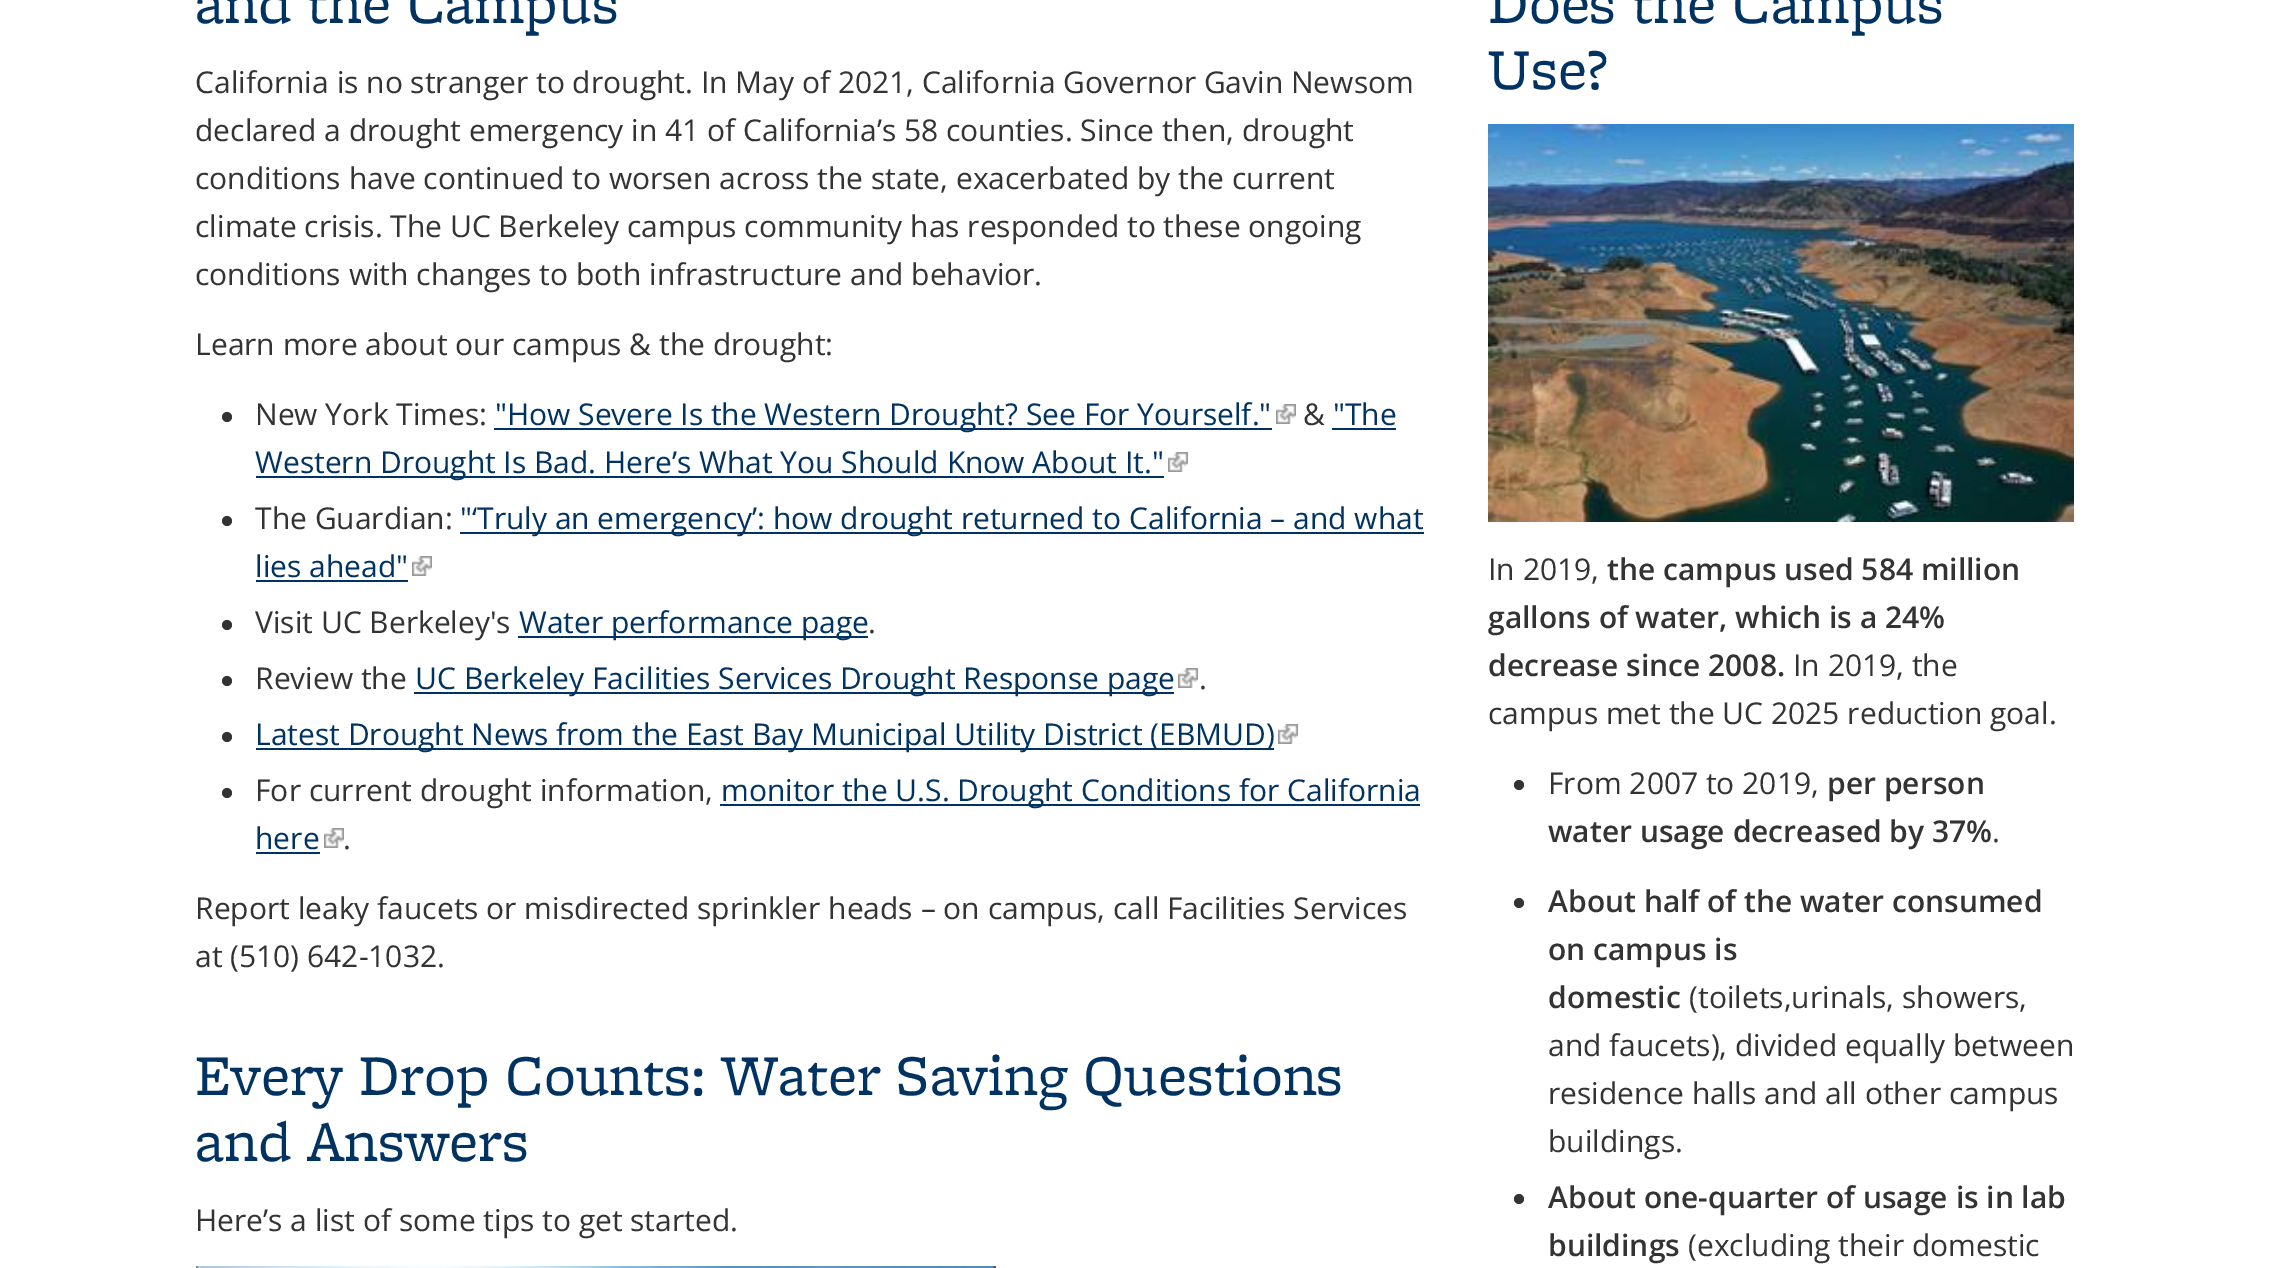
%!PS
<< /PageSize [2269 1268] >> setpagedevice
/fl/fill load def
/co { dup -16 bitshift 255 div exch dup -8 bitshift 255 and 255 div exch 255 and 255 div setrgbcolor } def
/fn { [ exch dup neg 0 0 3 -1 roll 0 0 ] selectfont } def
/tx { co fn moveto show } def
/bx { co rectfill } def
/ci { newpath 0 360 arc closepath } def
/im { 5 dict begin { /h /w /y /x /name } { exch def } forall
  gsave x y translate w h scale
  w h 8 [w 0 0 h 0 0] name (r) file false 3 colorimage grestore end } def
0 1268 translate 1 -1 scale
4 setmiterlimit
0 0 2269 1268 16#FFFFFF bx
16#333333 co
227 417 5 ci fl
494 428 778 2 16#003262 bx
(media/1.raw) 1276 404 20 20 im
1332 428 64 2 16#003262 bx
256 476 908 2 16#003262 bx
(media/1.raw) 1168 452 20 20 im
16#333333 co
227 521 5 ci fl
460 532 964 2 16#003262 bx
256 580 152 2 16#003262 bx
(media/1.raw) 412 556 20 20 im
16#333333 co
227 625 5 ci fl
518 636 350 2 16#003262 bx
16#333333 co
227 681 5 ci fl
414 692 760 2 16#003262 bx
(media/1.raw) 1178 668 20 20 im
16#333333 co
227 737 5 ci fl
256 748 1018 2 16#003262 bx
(media/1.raw) 1278 724 20 20 im
16#333333 co
227 793 5 ci fl
720 804 700 2 16#003262 bx
256 852 64 2 16#003262 bx
(media/1.raw) 324 828 20 20 im
(media/2.raw) 196 1266 800 2 im
(media/3.raw) 1488 124 586 398 im
16#333333 co
1519 785 5 ci fl
1519 903 5 ci fl
1519 1199 5 ci fl
(and the Campus) 195 23 /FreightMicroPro-Regular 60 16#003262 tx
(California is no stranger to drought. In May of 2021, California Governor Gavin Newsom) 195 93 /OpenSans-Regular 30 16#333333 tx
(declared a drought emergency in 41 of California’s 58 counties. Since then, drought) 195 141 /OpenSans-Regular 30 16#333333 tx
(conditions have continued to worsen across the state, exacerbated by the current) 195 189 /OpenSans-Regular 30 16#333333 tx
(climate crisis. The UC Berkeley campus community has responded to these ongoing) 195 237 /OpenSans-Regular 30 16#333333 tx
(conditions with changes to both infrastructure and behavior.) 195 285 /OpenSans-Regular 30 16#333333 tx
(Learn more about our campus & the drought:) 195 355 /OpenSans-Regular 30 16#333333 tx
(New York Times:) 255 425 /OpenSans-Regular 30 16#333333 tx
("How Severe Is the Western Drought? See For Yourself.") 495 425 /OpenSans-Regular 30 16#003262 tx
(&) 1303 425 /OpenSans-Regular 30 16#333333 tx
("The) 1333 425 /OpenSans-Regular 30 16#003262 tx
(Western Drought Is Bad. Here’s What You Should Know About It.") 255 473 /OpenSans-Regular 30 16#003262 tx
(The Guardian:) 255 529 /OpenSans-Regular 30 16#333333 tx
("‘Truly an emergency’: how drought returned to California – and what) 460 529 /OpenSans-Regular 30 16#003262 tx
(lies ahead") 255 577 /OpenSans-Regular 30 16#003262 tx
(Visit UC Berkeley's) 255 633 /OpenSans-Regular 30 16#333333 tx
(Water performance page) 519 633 /OpenSans-Regular 30 16#003262 tx
(.) 868 633 /OpenSans-Regular 30 16#333333 tx
(Review the) 255 689 /OpenSans-Regular 30 16#333333 tx
(UC Berkeley Facilities Services Drought Response page) 415 689 /OpenSans-Regular 30 16#003262 tx
(.) 1199 689 /OpenSans-Regular 30 16#333333 tx
(Latest Drought News from the East Bay Municipal Utility District \(EBMUD\)) 255 745 /OpenSans-Regular 30 16#003262 tx
(For current drought information,) 255 801 /OpenSans-Regular 30 16#333333 tx
(monitor the U.S. Drought Conditions for California) 721 801 /OpenSans-Regular 30 16#003262 tx
(here) 255 849 /OpenSans-Regular 30 16#003262 tx
(.) 343 849 /OpenSans-Regular 30 16#333333 tx
(Report leaky faucets or misdirected sprinkler heads – on campus, call Facilities Services) 195 919 /OpenSans-Regular 30 16#333333 tx
(at \(510\) 642-1032.) 195 967 /OpenSans-Regular 30 16#333333 tx
(Every Drop Counts: Water Saving Questions) 195 1095 /FreightMicroPro-Regular 60 16#003262 tx
(and Answers) 195 1161 /FreightMicroPro-Regular 60 16#003262 tx
(Here’s a list of some tips to get started.) 195 1231 /OpenSans-Regular 30 16#333333 tx
(Does the Campus) 1488 23 /FreightMicroPro-Regular 60 16#003262 tx
(Use?) 1488 89 /FreightMicroPro-Regular 60 16#003262 tx
(In 2019,) 1488 580 /OpenSans-Regular 30 16#333333 tx
(the campus used 584 million) 1607 580 /OpenSans-SemiBold 30 16#333333 tx
(gallons of water, which is a 24%) 1488 628 /OpenSans-SemiBold 30 16#333333 tx
(decrease since 2008.) 1488 676 /OpenSans-SemiBold 30 16#333333 tx
(In 2019, the) 1793 676 /OpenSans-Regular 30 16#333333 tx
(campus met the UC 2025 reduction goal.) 1488 724 /OpenSans-Regular 30 16#333333 tx
(From 2007 to 2019,) 1548 794 /OpenSans-Regular 30 16#333333 tx
(per person) 1827 794 /OpenSans-SemiBold 30 16#333333 tx
(water usage decreased by 37%) 1548 842 /OpenSans-SemiBold 30 16#333333 tx
(.) 1992 842 /OpenSans-Regular 30 16#333333 tx
(About half of the water consumed) 1548 912 /OpenSans-SemiBold 30 16#333333 tx
(on campus is) 1548 960 /OpenSans-SemiBold 30 16#333333 tx
(domestic) 1548 1008 /OpenSans-SemiBold 30 16#333333 tx
(\(toilets,urinals, showers,) 1689 1008 /OpenSans-Regular 30 16#333333 tx
(and faucets\), divided equally between) 1548 1056 /OpenSans-Regular 30 16#333333 tx
(residence halls and all other campus) 1548 1104 /OpenSans-Regular 30 16#333333 tx
(buildings.) 1548 1152 /OpenSans-Regular 30 16#333333 tx
(About one-quarter of usage is in lab) 1548 1208 /OpenSans-SemiBold 30 16#333333 tx
(buildings) 1548 1256 /OpenSans-SemiBold 30 16#333333 tx
(\(excluding their domestic) 1688 1256 /OpenSans-Regular 30 16#333333 tx
showpage
